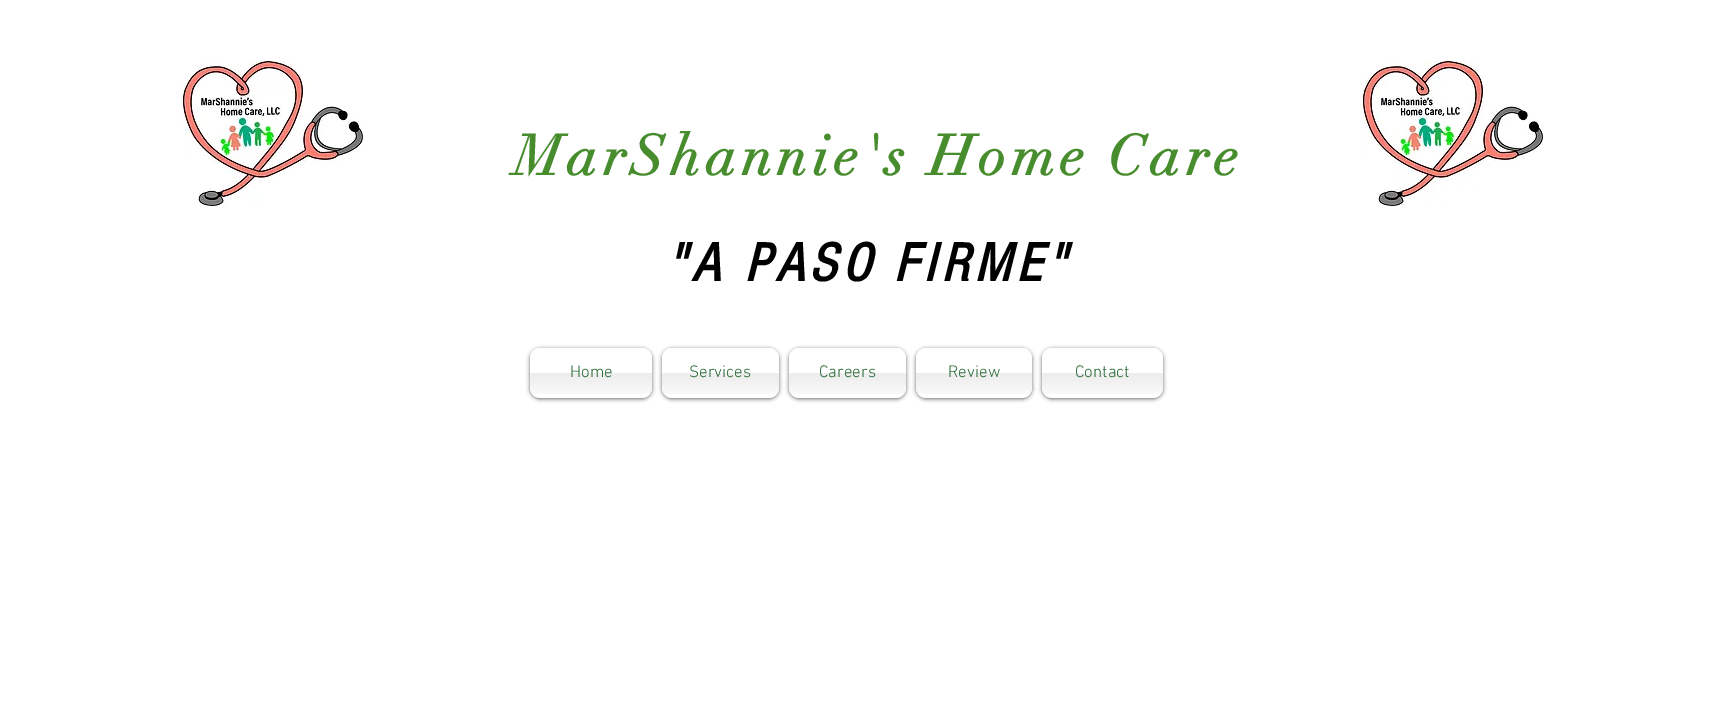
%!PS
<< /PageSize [1726 718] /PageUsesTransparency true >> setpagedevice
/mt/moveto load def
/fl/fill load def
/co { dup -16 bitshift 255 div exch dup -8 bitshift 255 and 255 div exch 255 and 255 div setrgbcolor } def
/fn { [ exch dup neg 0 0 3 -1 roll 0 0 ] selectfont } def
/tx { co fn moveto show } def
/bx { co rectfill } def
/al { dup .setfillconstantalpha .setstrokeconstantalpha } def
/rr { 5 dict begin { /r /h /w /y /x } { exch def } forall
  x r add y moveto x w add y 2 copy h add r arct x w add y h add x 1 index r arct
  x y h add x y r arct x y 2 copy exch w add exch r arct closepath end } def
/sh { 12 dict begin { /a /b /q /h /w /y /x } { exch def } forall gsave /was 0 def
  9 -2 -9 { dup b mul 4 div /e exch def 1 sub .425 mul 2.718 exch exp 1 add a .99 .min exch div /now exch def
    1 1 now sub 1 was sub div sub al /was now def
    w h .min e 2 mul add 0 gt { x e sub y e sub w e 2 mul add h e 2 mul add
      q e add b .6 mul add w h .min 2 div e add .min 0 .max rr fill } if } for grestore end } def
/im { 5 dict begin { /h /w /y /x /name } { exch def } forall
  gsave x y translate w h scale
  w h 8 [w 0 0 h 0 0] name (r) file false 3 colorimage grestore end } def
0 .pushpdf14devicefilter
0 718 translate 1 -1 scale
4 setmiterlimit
0 0 1726 718 16#FFFFFF bx
(media/1.raw) 183 61 180 145 im
(media/2.raw) 1363 61 180 145 im
16#000000 co
530 349 122 50 10 2 .6 sh
16#FFFFFF co
530 348 122 50 10 rr fl
(media/3.raw) 530 373 122 21 im
16#000000 co
662 349 117 50 10 2 .6 sh
16#FFFFFF co
662 348 117 50 10 rr fl
(media/4.raw) 662 373 117 21 im
16#000000 co
789 349 117 50 10 2 .6 sh
16#FFFFFF co
789 348 117 50 10 rr fl
(media/4.raw) 789 373 117 21 im
16#000000 co
916 349 116 50 10 2 .6 sh
16#FFFFFF co
916 348 116 50 10 rr fl
(media/5.raw) 916 373 116 21 im
16#000000 co
1042 349 121 50 10 2 .6 sh
16#FFFFFF co
1042 348 121 50 10 rr fl
(media/6.raw) 1042 373 121 21 im
/didot-Bold 56 fn
16#478D2E co
514 175 mt 5.6 0 (MarShannie's Home Care) ashow
/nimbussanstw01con-BoldItalic 56 fn
16#000000 co
667 281 mt 5.6 0 ("A PASO FIRME") ashow
(Home) 570 377 /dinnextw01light-Light 17 16#2A6B37 tx
(Services) 689 377 /dinnextw01light-Light 17 16#2A6B37 tx
(Careers) 819 377 /dinnextw01light-Light 17 16#2A6B37 tx
(Review) 948 377 /dinnextw01light-Light 17 16#2A6B37 tx
(Contact) 1075 377 /dinnextw01light-Light 17 16#2A6B37 tx
.poppdf14devicefilter showpage
